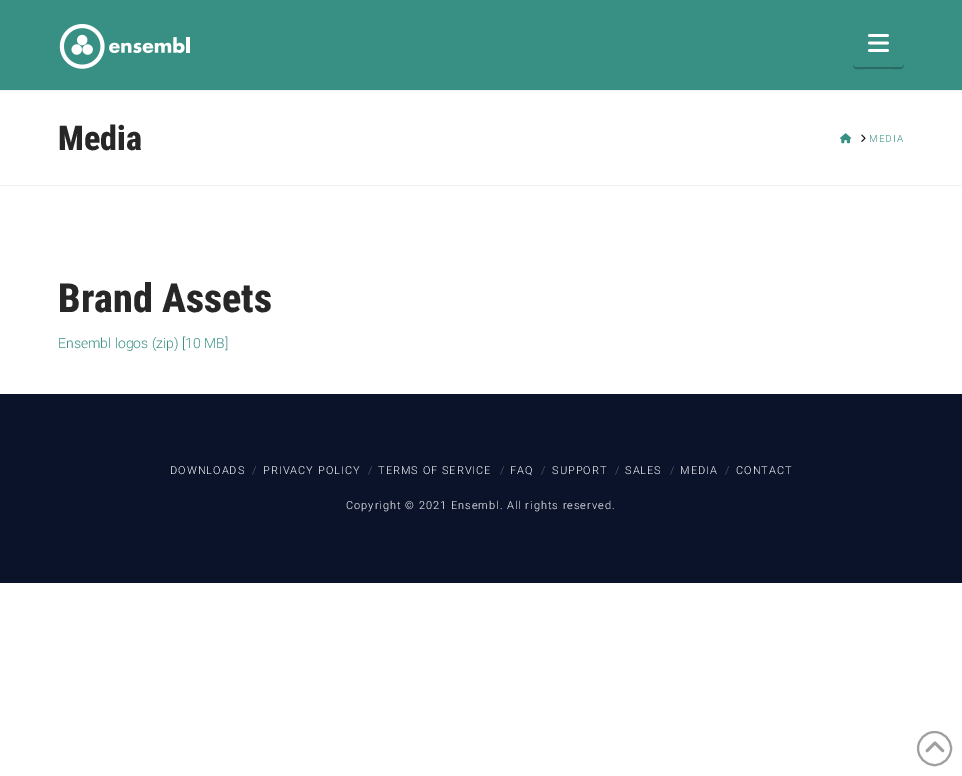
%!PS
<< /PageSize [962 776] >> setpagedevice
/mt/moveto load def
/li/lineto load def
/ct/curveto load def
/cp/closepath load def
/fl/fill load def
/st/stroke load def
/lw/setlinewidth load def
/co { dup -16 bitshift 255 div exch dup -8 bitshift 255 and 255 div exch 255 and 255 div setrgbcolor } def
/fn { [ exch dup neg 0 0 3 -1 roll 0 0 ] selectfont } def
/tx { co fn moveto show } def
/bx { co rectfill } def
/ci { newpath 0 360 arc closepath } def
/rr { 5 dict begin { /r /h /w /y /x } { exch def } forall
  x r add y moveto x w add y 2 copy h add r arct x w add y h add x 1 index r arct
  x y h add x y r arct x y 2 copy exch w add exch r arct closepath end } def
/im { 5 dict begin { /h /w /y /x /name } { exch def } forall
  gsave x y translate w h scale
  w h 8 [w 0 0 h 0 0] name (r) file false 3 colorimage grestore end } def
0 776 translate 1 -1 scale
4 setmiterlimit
0 0 962 776 16#FFFFFF bx
0 0 962 90 16#389084 bx
(media/1.raw) 59 24 131 45 im
16#2A6C63 co
853 63 mt 853 71 857 69 864 69 ct 893 69 li 900 69 904 71 904 63 ct 904 65 902 67 900 67 ct 857 67 li 855 67 853 65 853 63 ct cp fl
16#389084 co
853 20 51 47 4 rr fl
(media/2.raw) 868 34 21 18 im
0 90 962 1 16#F2F2F2 bx
0 185 962 1 16#F2F2F2 bx
(media/3.raw) 840 133 12 11 im
(media/4.raw) 861 134 5 8 im
0 394 962 189 16#0B132B bx
16#9F9F9F co
2 lw
934.5 748.5 16.5 ci st
(media/5.raw) 925 741 20 12 im
(Media) 58 150 /RobotoCondensed-ExtraBold 34 16#272727 tx
/Roboto-Light 10 fn
16#389084 co
869 142 mt 1 0 (MEDIA) ashow
(Brand Assets) 58 312 /RobotoCondensed-ExtraBold 40 16#272727 tx
(Ensembl logos \(zip\) [10 MB]) 58 348 /Roboto-Light 14 16#389084 tx
/Roboto-Light 11 fn
16#FFFFFF co
170 474 mt 1 0 (DOWNLOADS) ashow
(/) 252 474 /Roboto-Light 11 16#606675 tx
16#FFFFFF co
263 474 mt 1 0 (PRIVACY POLICY) ashow
(/) 368 474 /Roboto-Light 11 16#606675 tx
16#FFFFFF co
378 474 mt 1 0 (TERMS OF SERVICE) ashow
(/) 500 474 /Roboto-Light 11 16#606675 tx
16#FFFFFF co
510 474 mt 1 0 (FAQ) ashow
(/) 541 474 /Roboto-Light 11 16#606675 tx
16#FFFFFF co
552 474 mt 1 0 (SUPPORT) ashow
(/) 615 474 /Roboto-Light 11 16#606675 tx
16#FFFFFF co
625 474 mt 1 0 (SALES) ashow
(/) 670 474 /Roboto-Light 11 16#606675 tx
16#FFFFFF co
680 474 mt 1 0 (MEDIA) ashow
(/) 725 474 /Roboto-Light 11 16#606675 tx
16#FFFFFF co
736 474 mt 1 0 (CONTACT) ashow
346 509 mt 1 0 (Copyright © 2021 Ensembl. All rights reserved.) ashow
showpage
